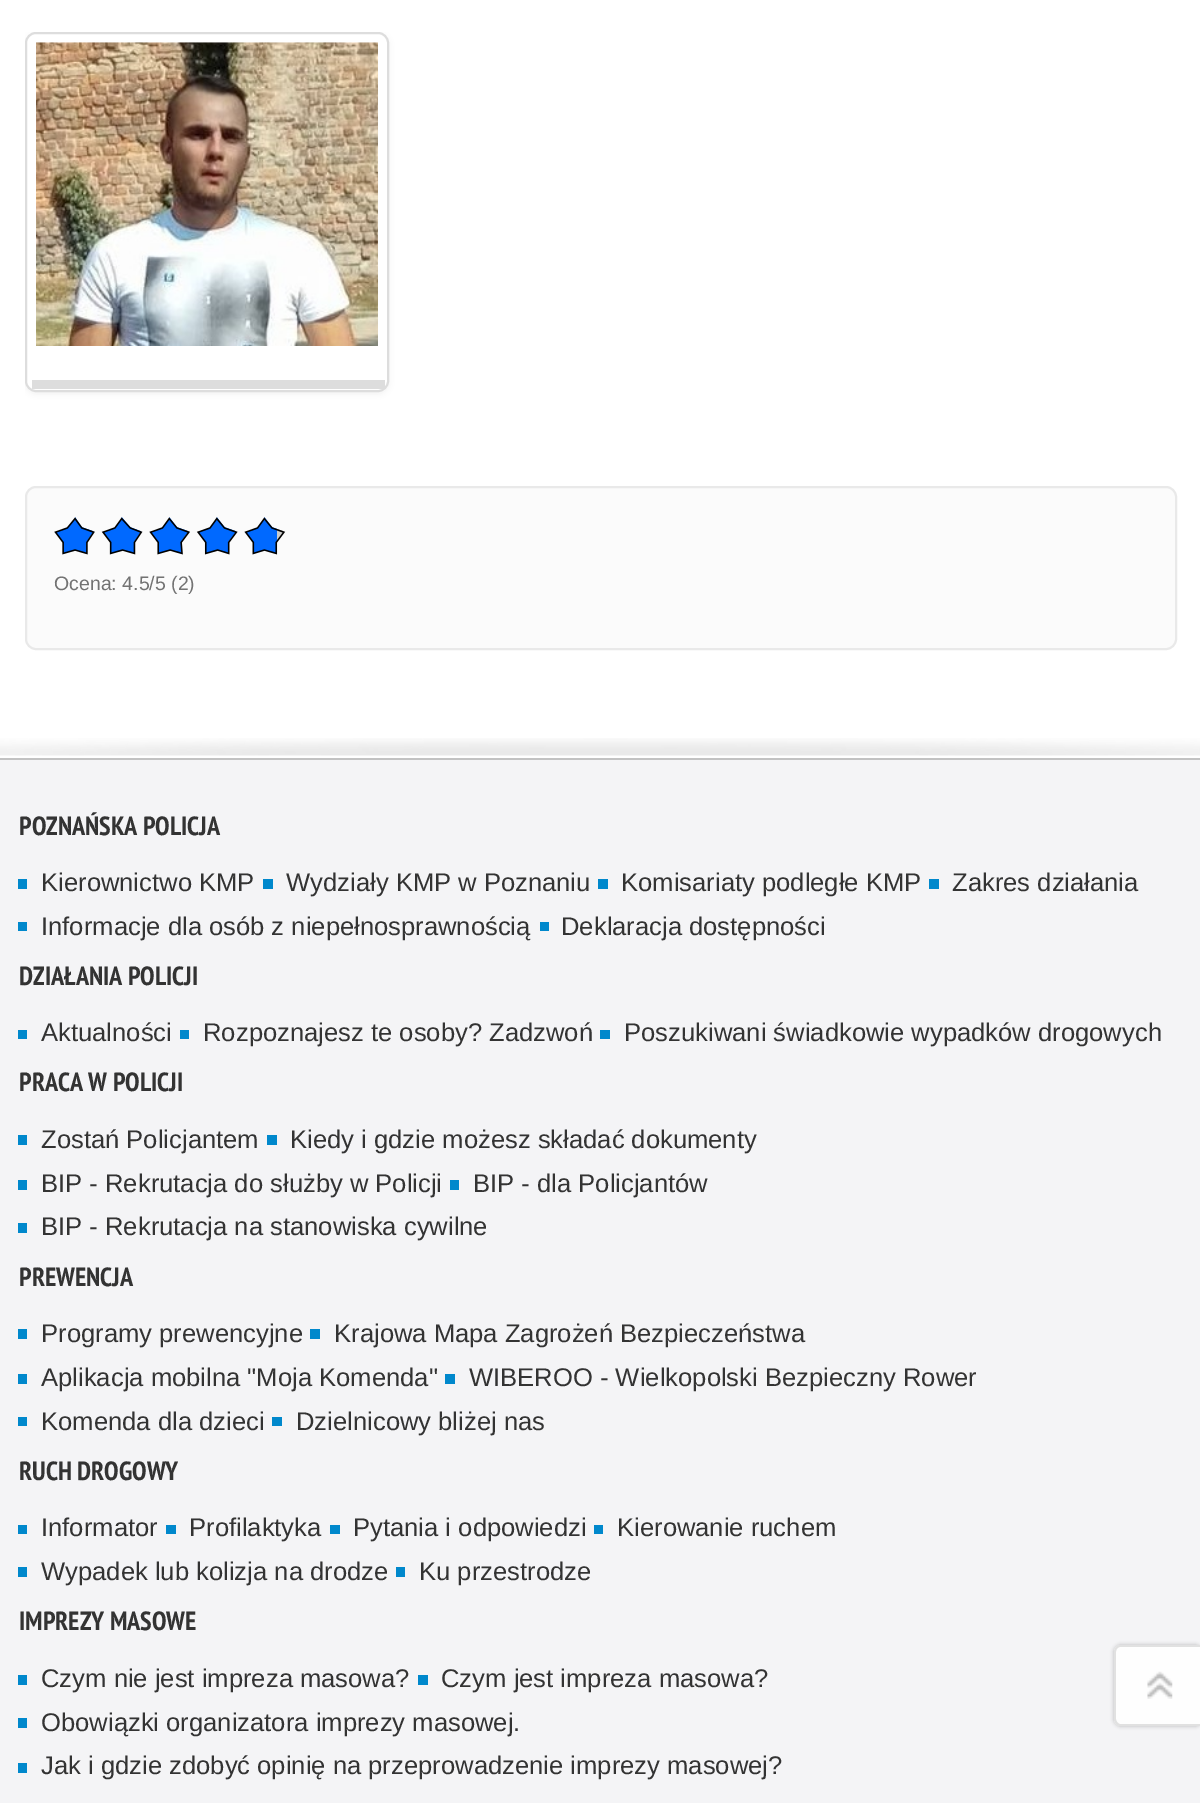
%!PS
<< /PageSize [1200 1803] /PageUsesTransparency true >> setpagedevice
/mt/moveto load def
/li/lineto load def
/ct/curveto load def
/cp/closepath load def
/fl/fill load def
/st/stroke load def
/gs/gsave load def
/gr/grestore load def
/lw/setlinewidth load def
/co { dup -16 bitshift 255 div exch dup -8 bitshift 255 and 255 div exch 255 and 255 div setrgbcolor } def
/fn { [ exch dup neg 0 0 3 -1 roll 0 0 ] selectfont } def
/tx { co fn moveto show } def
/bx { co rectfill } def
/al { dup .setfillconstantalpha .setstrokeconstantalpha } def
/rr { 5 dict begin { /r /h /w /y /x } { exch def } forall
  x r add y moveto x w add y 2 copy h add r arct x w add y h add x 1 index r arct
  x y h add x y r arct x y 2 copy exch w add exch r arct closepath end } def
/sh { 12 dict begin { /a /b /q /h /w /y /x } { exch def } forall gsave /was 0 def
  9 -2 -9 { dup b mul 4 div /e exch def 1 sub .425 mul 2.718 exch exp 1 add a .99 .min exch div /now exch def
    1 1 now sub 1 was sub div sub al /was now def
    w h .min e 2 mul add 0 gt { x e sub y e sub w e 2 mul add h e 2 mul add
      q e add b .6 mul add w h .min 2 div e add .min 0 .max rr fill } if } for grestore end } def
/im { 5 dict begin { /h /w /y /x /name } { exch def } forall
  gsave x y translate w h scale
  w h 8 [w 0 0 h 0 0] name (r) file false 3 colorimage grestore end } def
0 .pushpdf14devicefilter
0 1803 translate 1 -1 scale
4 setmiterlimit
0 0 1200 1803 16#FFFFFF bx
gs
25 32 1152 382 rectclip
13 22 mt 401 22 li 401 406 li 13 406 li cp 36 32 mt 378 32 li 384 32 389 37 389 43 ct 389 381 li 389 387 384 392 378 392 ct 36 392 li 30 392 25 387 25 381 ct 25 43 li 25 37 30 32 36 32 ct cp eoclip newpath
16#000000 co
25 34 364 360 11 3.5 .06 sh
gr
16#DDDDDD co
2 lw
26 33 362 358 10 rr st
32 380 353 9 16#DDDDDD bx
(media/1.raw) 36 42 342 304 im
16#FBFBFB co
26 487 1150 162 10 rr gs fl gr
16#E9E9E9 co
st
277 528 7 12 16#CCCCCC bx
56 517 221 37 16#0069FF bx
(media/2.raw) 54 515 248 57 im
(media/3.raw) 0 738 1200 18 im
0 760 1200 1043 16#F4F4F6 bx
0 758 1200 2 16#C2C2C2 bx
18 879 9 10 16#0088CC bx
263 879 10 10 16#0088CC bx
598 879 10 10 16#0088CC bx
929 879 10 10 16#0088CC bx
18 922 9 9 16#0088CC bx
540 922 9 9 16#0088CC bx
18 1030 9 9 16#0088CC bx
180 1030 9 9 16#0088CC bx
600 1030 10 9 16#0088CC bx
18 1135 9 10 16#0088CC bx
267 1135 10 10 16#0088CC bx
18 1180 9 10 16#0088CC bx
450 1180 9 10 16#0088CC bx
18 1223 9 10 16#0088CC bx
18 1329 9 10 16#0088CC bx
310 1329 10 10 16#0088CC bx
18 1374 9 10 16#0088CC bx
445 1374 10 10 16#0088CC bx
18 1417 9 9 16#0088CC bx
272 1417 10 9 16#0088CC bx
18 1525 9 9 16#0088CC bx
166 1525 10 9 16#0088CC bx
330 1525 10 9 16#0088CC bx
594 1525 9 9 16#0088CC bx
18 1567 9 10 16#0088CC bx
396 1567 9 10 16#0088CC bx
18 1675 9 10 16#0088CC bx
418 1675 10 10 16#0088CC bx
18 1718 9 10 16#0088CC bx
18 1763 9 10 16#0088CC bx
16#000000 co
1114 1645 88 81 7 2 .25 sh
16#FEFEFE co
1121 1645 mt 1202 1645 li 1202 1726 li 1121 1726 li 1117 1726 1114 1723 1114 1719 ct 1114 1652 li 1114 1648 1117 1645 1121 1645 ct cp fl
16#E1E1E1 co
1120 1645 mt 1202 1645 li 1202 1726 li 1120 1726 li 1117 1726 1114 1723 1114 1719 ct 1114 1652 li 1114 1648 1117 1645 1120 1645 ct cp 1120 1647 mt 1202 1647 li 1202 1724 li 1120 1724 li 1118 1724 1116 1721 1116 1719 ct 1116 1652 li 1116 1649 1118 1647 1120 1647 ct cp eofill
(media/4.raw) 1147 1671 26 28 im
(Ocena: 4.5/5 \(2\)) 54 590 /LiberationSans-Regular 19.5 16#737373 tx
(POZNAŃSKA POLICJA) 19 835 /PTSansNarrow-Bold 26.25 16#333333 tx
(Kierownictwo KMP) 41 891 /LiberationSans-Regular 25.6 16#333333 tx
(Wydziały KMP w Poznaniu) 286 891 /LiberationSans-Regular 25.6 16#333333 tx
(Komisariaty podległe KMP) 621 891 /LiberationSans-Regular 25.6 16#333333 tx
(Zakres działania) 952 891 /LiberationSans-Regular 25.6 16#333333 tx
(Informacje dla osób z niepełnosprawnością) 41 935 /LiberationSans-Regular 25.6 16#333333 tx
(Deklaracja dostępności) 561 935 /LiberationSans-Regular 25.6 16#333333 tx
(DZIAŁANIA POLICJI) 19 985 /PTSansNarrow-Bold 26.25 16#333333 tx
(Aktualności) 41 1041 /LiberationSans-Regular 25.6 16#333333 tx
(Rozpoznajesz te osoby? Zadzwoń) 203 1041 /LiberationSans-Regular 25.6 16#333333 tx
(Poszukiwani świadkowie wypadków drogowych) 624 1041 /LiberationSans-Regular 25.6 16#333333 tx
(PRACA W POLICJI) 19 1091 /PTSansNarrow-Bold 26.25 16#333333 tx
(Zostań Policjantem) 41 1148 /LiberationSans-Regular 25.6 16#333333 tx
(Kiedy i gdzie możesz składać dokumenty) 290 1148 /LiberationSans-Regular 25.6 16#333333 tx
(BIP - Rekrutacja do służby w Policji) 41 1192 /LiberationSans-Regular 25.6 16#333333 tx
(BIP - dla Policjantów) 473 1192 /LiberationSans-Regular 25.6 16#333333 tx
(BIP - Rekrutacja na stanowiska cywilne) 41 1235 /LiberationSans-Regular 25.6 16#333333 tx
(PREWENCJA) 19 1286 /PTSansNarrow-Bold 26.25 16#333333 tx
(Programy prewencyjne) 41 1342 /LiberationSans-Regular 25.6 16#333333 tx
(Krajowa Mapa Zagrożeń Bezpieczeństwa) 334 1342 /LiberationSans-Regular 25.6 16#333333 tx
(Aplikacja mobilna "Moja Komenda") 41 1386 /LiberationSans-Regular 25.6 16#333333 tx
(WIBEROO - Wielkopolski Bezpieczny Rower) 469 1386 /LiberationSans-Regular 25.6 16#333333 tx
(Komenda dla dzieci) 41 1430 /LiberationSans-Regular 25.6 16#333333 tx
(Dzielnicowy bliżej nas) 296 1430 /LiberationSans-Regular 25.6 16#333333 tx
(RUCH DROGOWY) 19 1480 /PTSansNarrow-Bold 26.25 16#333333 tx
(Informator) 41 1536 /LiberationSans-Regular 25.6 16#333333 tx
(Profilaktyka) 189 1536 /LiberationSans-Regular 25.6 16#333333 tx
(Pytania i odpowiedzi) 353 1536 /LiberationSans-Regular 25.6 16#333333 tx
(Kierowanie ruchem) 617 1536 /LiberationSans-Regular 25.6 16#333333 tx
(Wypadek lub kolizja na drodze) 41 1580 /LiberationSans-Regular 25.6 16#333333 tx
(Ku przestrodze) 419 1580 /LiberationSans-Regular 25.6 16#333333 tx
(IMPREZY MASOWE) 19 1630 /PTSansNarrow-Bold 26.25 16#333333 tx
(Czym nie jest impreza masowa?) 41 1687 /LiberationSans-Regular 25.6 16#333333 tx
(Czym jest impreza masowa?) 441 1687 /LiberationSans-Regular 25.6 16#333333 tx
(Obowiązki organizatora imprezy masowej.) 41 1731 /LiberationSans-Regular 25.6 16#333333 tx
(Jak i gdzie zdobyć opinię na przeprowadzenie imprezy masowej?) 41 1774 /LiberationSans-Regular 25.6 16#333333 tx
.poppdf14devicefilter showpage
